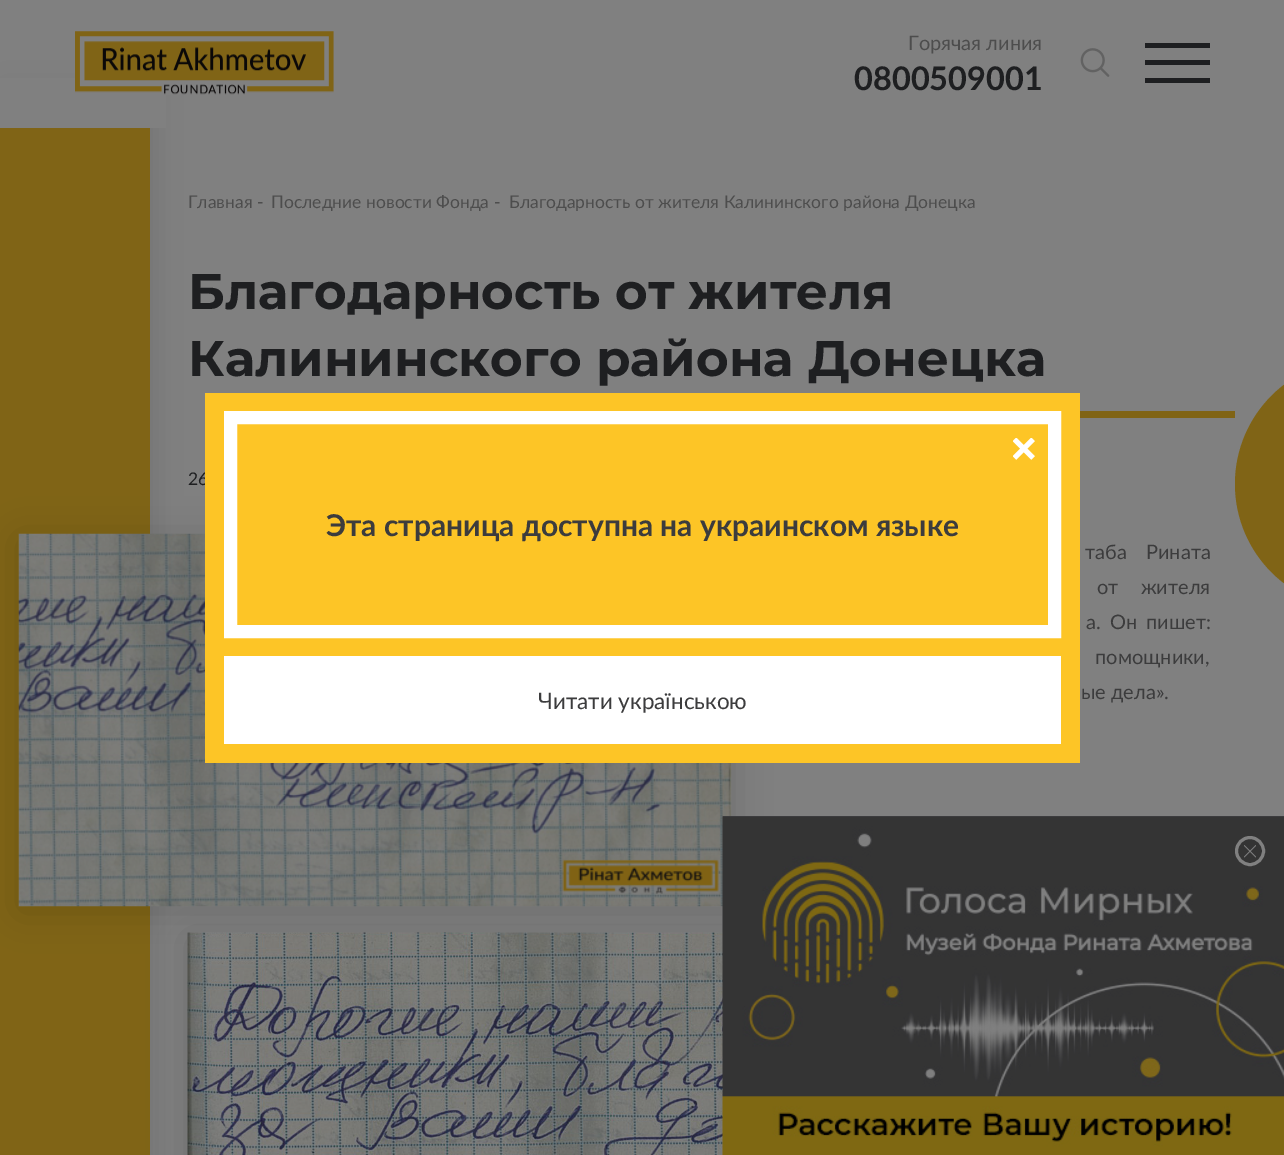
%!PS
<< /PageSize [1284 1155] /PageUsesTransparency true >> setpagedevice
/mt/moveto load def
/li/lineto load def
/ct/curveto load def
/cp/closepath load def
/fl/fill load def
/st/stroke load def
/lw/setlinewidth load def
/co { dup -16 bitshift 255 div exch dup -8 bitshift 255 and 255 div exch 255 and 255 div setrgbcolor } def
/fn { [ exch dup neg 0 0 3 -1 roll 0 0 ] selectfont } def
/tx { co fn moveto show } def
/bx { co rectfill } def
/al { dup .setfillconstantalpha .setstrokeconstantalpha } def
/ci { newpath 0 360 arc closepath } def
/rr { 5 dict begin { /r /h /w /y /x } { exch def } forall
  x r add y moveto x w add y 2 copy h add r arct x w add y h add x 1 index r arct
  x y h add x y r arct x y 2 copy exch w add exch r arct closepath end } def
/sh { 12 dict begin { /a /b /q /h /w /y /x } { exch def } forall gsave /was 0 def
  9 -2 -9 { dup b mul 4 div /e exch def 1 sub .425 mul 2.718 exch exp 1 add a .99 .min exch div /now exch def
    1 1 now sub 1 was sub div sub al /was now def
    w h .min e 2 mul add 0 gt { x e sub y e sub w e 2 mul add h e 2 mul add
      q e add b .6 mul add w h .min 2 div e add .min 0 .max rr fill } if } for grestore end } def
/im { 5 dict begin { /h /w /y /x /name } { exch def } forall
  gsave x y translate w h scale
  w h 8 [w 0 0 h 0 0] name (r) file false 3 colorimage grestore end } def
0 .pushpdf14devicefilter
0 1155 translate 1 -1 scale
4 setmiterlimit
0 0 1284 1155 16#808080 bx
16#000000 co
6 88 150 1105 0 12.5 .1 sh
0 78 166 50 16#808080 bx
(media/1.raw) 75 31 259 64 im
(media/2.raw) 1080 48 30 29 im
1145 43 65 5 16#1E1F21 bx
1145 60 65 5 16#1E1F21 bx
1145 78 65 5 16#1E1F21 bx
0 128 150 1027 16#806416 bx
1080 411 155 7 16#806416 bx
16#000000 co
19 539 712 372 0 19 .15 sh
(media/3.raw) 18 533 714 374 im
188 938 1022 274 0 19 .15 sh
(media/4.raw) 187 932 536 223 im
16#806416 co
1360 359 mt 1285 359 li 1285 609 li 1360 609 li 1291 609 1235 553 1235 484 ct 1235 415 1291 359 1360 359 ct cp fl
(media/6.raw) 722 816 562 339 im
16#808080 co
3 lw
1250 851 13.5 ci st
(media/7.raw) 1244 845 12 13 im
(Горячая линия) 908 50 /Lato-Regular 20 16#4D4D4D tx
(0800509001) 854 90 /Lato-Bold 32.5 16#1E1F21 tx
(Главная -) 188 208 /Lato-Regular 17.5 16#4D4D4D tx
(Последние новости Фонда -) 271 208 /Lato-Regular 17.5 16#4D4D4D tx
(Благодарность от жителя Калининского района Донецка) 509 208 /Lato-Regular 17.5 16#4D4D4D tx
(Благодарность от жителя) 188 309 /Montserrat-Bold 50 16#1E1F21 tx
(Калининского района Донецка) 188 376 /Montserrat-Bold 50 16#1E1F21 tx
(26) 188 485 /Lato-Regular 17.5 16#1E1F21 tx
/Lato-Regular 20 fn
16#3C3C3D co
1085 559 mt 14 0 32 (таба Рината) widthshow
1097 594 mt 17 0 32 (от жителя) widthshow
1086 629 mt 4 0 32 (а. Он пишет:) widthshow
1095 664 mt 9 0 32 (помощники,) widthshow
(ые дела».) 1081 699 /Lato-Regular 20 16#3C3C3D tx
205 393 875 370 16#FDC526 bx
16#FFFFFF co
13 lw
230.5 417.5 824 214 rectstroke
(media/5.raw) 1013 438 22 22 im
(Эта страница доступна на украинском языке) 326 536 /Lato-Bold 30 16#3C3C3D tx
224 656 837 88 16#FFFFFF bx
(Читати українською) 538 709 /Lato-Regular 22.5 16#3C3C3D tx
.poppdf14devicefilter showpage
